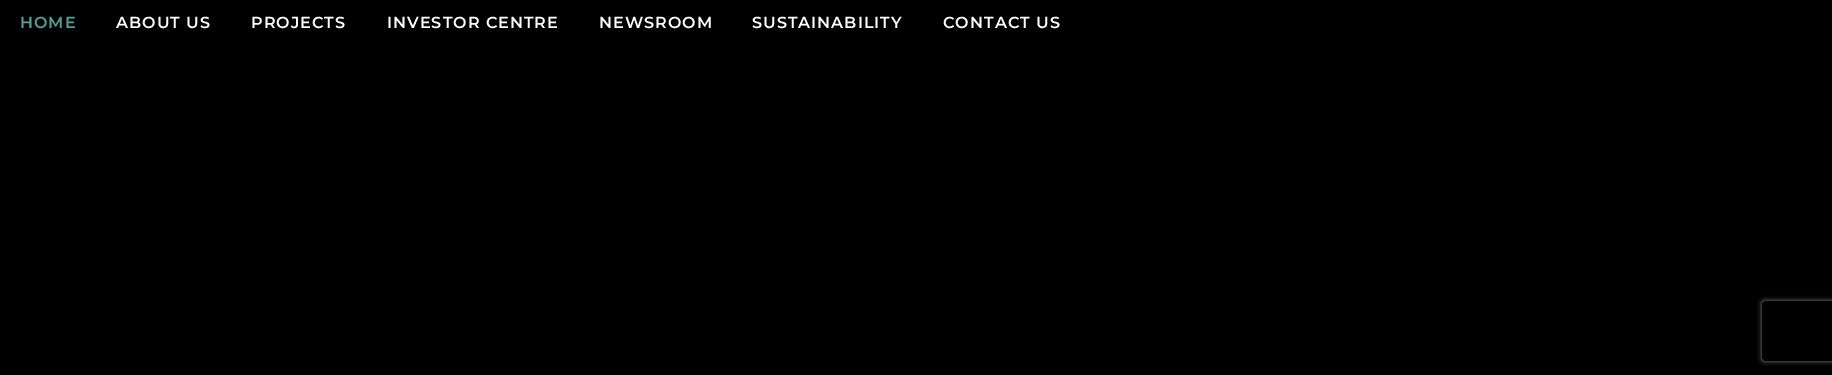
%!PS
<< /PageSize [1832 375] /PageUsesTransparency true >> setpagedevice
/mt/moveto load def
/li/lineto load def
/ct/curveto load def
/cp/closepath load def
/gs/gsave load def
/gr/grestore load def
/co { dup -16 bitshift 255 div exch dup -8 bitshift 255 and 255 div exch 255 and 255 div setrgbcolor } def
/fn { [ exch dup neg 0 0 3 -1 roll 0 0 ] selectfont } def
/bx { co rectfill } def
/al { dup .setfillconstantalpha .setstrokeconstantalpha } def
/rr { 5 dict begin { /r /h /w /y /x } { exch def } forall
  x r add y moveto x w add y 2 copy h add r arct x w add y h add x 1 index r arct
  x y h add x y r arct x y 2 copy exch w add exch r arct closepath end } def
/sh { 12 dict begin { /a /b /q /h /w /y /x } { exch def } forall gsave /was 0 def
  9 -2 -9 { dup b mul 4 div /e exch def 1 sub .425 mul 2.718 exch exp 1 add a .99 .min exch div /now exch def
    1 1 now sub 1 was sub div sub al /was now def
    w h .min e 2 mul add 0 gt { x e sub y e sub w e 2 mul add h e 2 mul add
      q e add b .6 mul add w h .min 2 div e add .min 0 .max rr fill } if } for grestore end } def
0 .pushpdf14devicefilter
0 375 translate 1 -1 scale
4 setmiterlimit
0 0 1832 375 16#000000 bx
gs
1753 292 mt 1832 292 li 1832 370 li 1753 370 li cp 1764 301 mt 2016 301 li 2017 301 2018 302 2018 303 ct 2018 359 li 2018 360 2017 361 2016 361 ct 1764 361 li 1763 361 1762 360 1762 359 ct 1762 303 li 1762 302 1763 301 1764 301 ct cp eoclip newpath
16#808080 co
1762 301 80 60 2 2.5 1 sh
gr
/Montserrat-SemiBold 16 fn
16#52A293 co
20 28 mt 1 0 (HOME) ashow
16#FFFFFF co
116 28 mt 1 0 (ABOUT US) ashow
251 28 mt 1 0 (PROJECTS) ashow
387 28 mt 1 0 (INVESTOR CENTRE) ashow
599 28 mt 1 0 (NEWSROOM) ashow
752 28 mt 1 0 (SUSTAINABILITY) ashow
943 28 mt 1 0 (CONTACT US) ashow
.poppdf14devicefilter showpage
